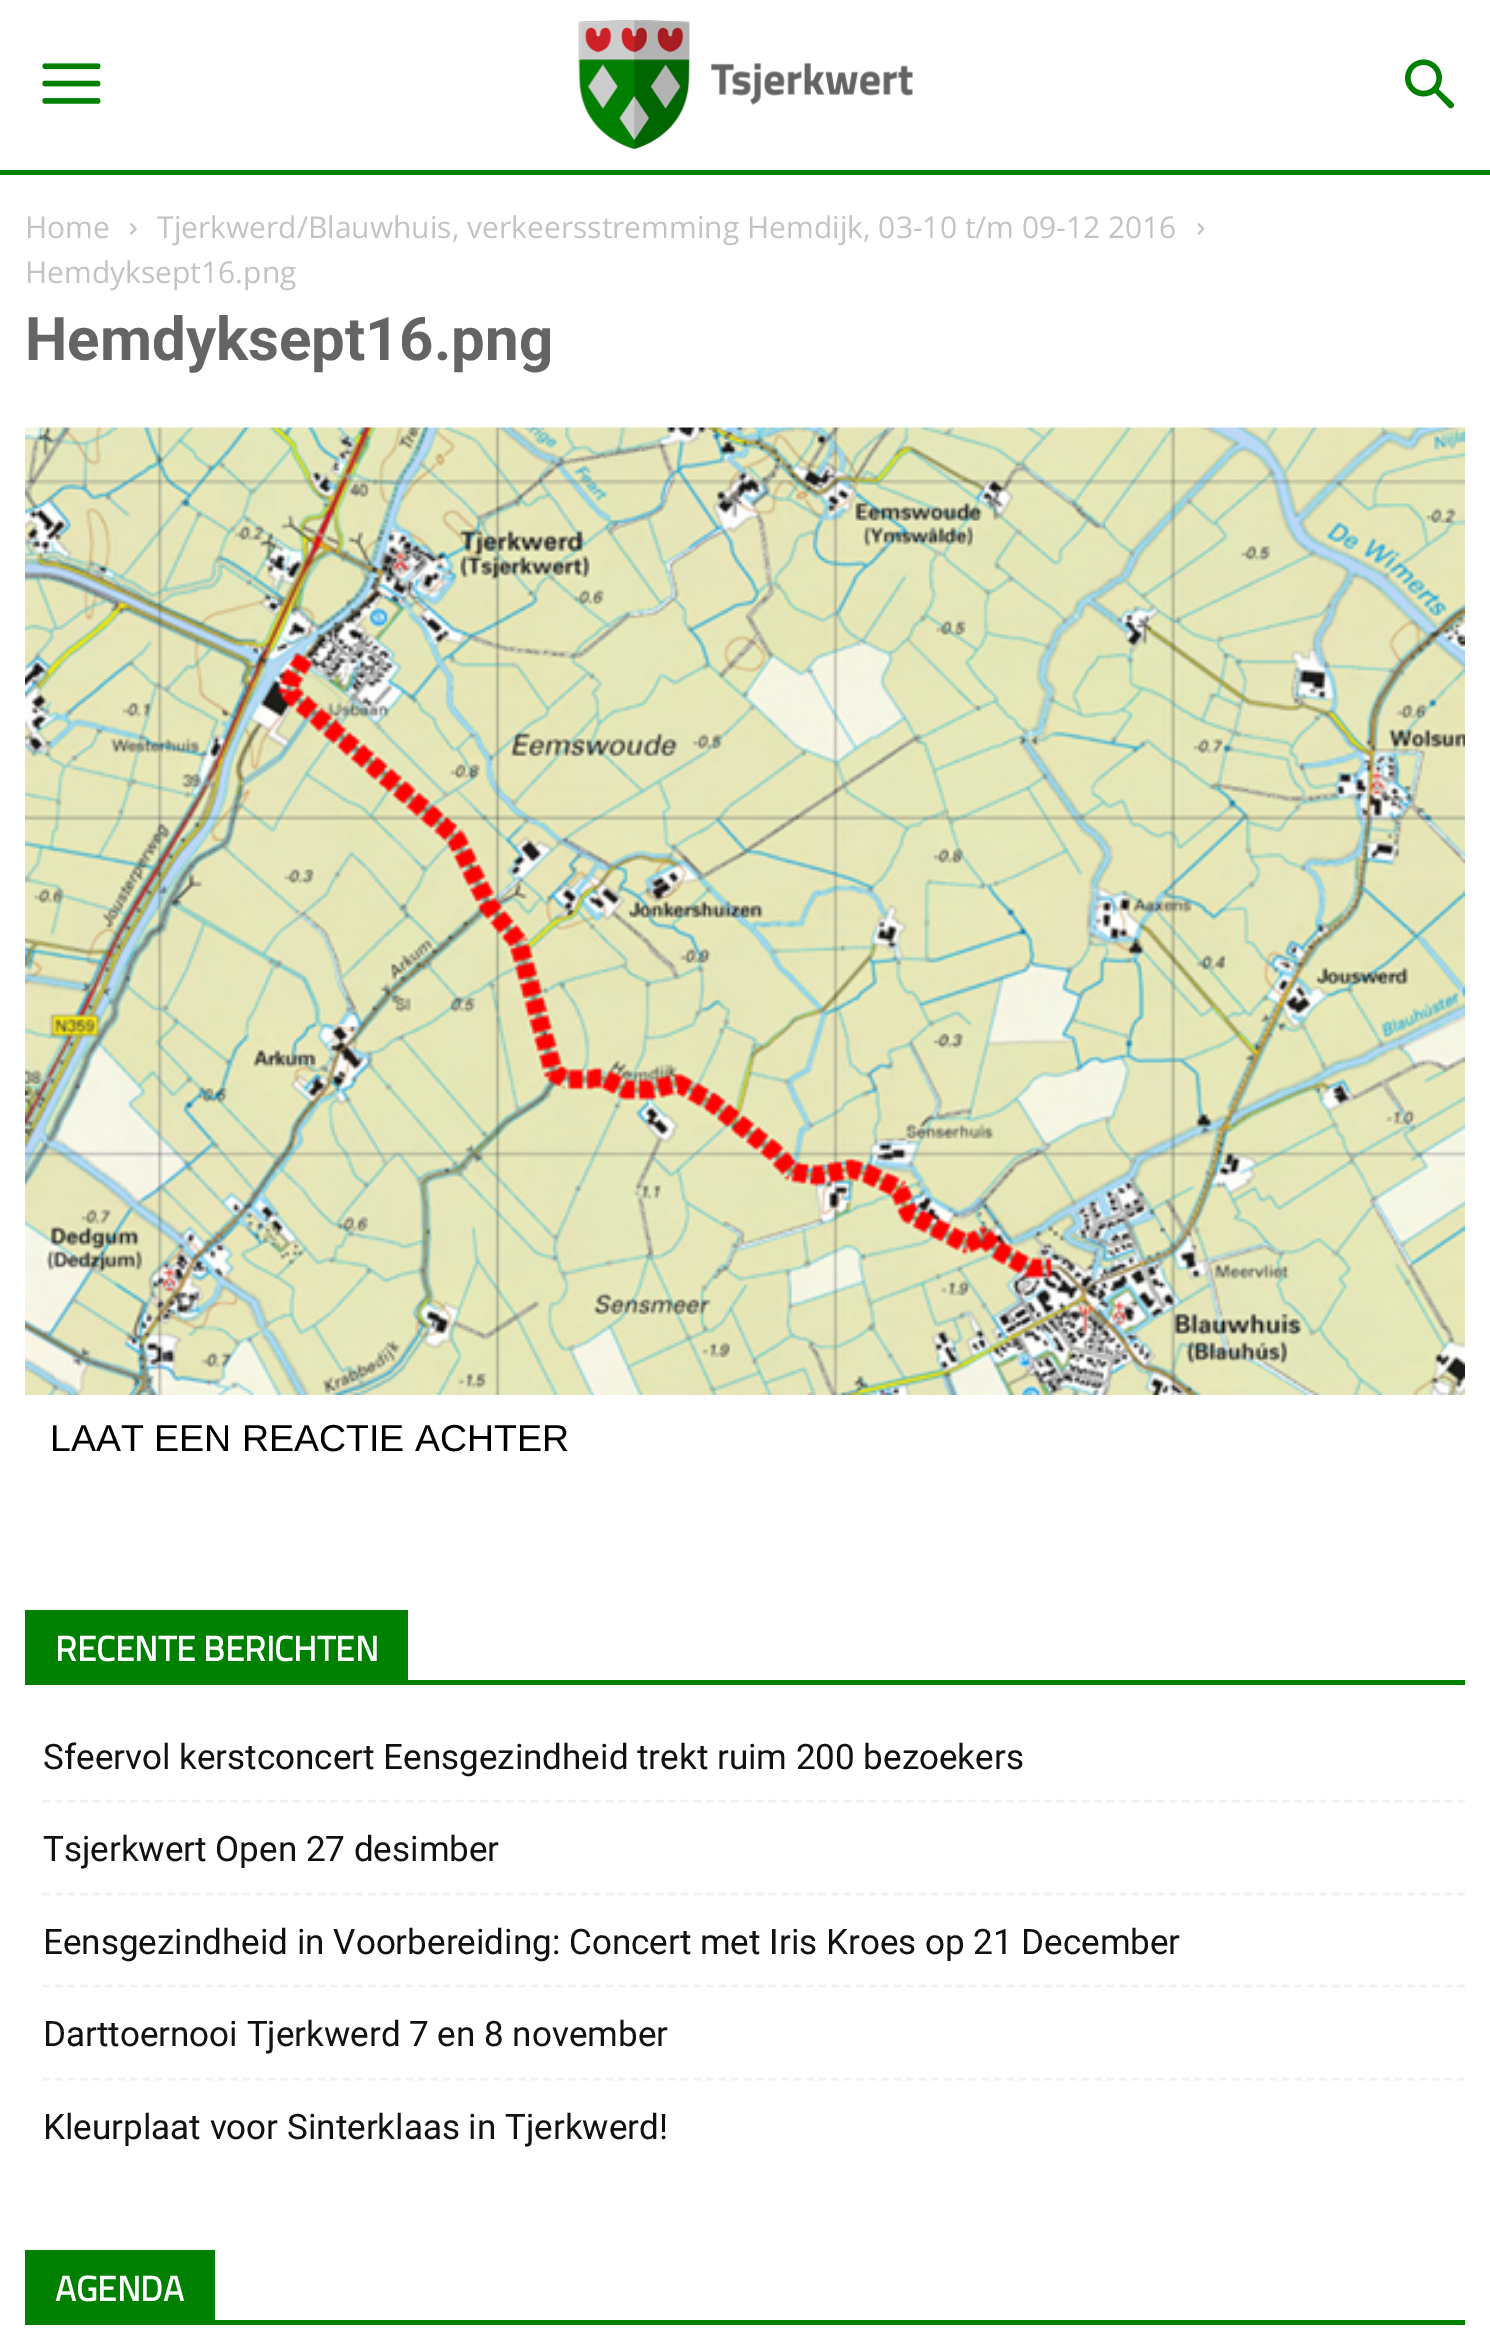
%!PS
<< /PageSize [1490 2348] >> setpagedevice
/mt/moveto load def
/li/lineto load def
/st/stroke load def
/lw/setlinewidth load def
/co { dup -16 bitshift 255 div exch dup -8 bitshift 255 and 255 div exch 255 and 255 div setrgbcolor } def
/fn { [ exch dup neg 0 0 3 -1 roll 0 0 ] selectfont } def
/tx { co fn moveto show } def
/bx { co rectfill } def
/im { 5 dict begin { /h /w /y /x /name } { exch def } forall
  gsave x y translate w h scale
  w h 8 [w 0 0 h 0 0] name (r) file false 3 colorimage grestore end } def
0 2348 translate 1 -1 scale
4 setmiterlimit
0 0 1490 2348 16#FFFFFF bx
0 170 1490 5 16#008001 bx
(media/1.raw) 42 63 59 41 im
(media/2.raw) 578 20 335 130 im
(media/3.raw) 1405 59 49 50 im
(media/4.raw) 130 223 7 12 im
(media/5.raw) 1197 223 8 12 im
(media/6.raw) 25 427 1440 968 im
25 1680 1440 5 16#008001 bx
25 1610 383 70 16#008001 bx
16#F1F1F1 co
2.5 lw
[7.5 5.02] 0 setdash
42.5 1801 mt 1465 1801 li st
42.5 1894 mt 1465 1894 li st
42.5 1986 mt 1465 1986 li st
42.5 2079 mt 1465 2079 li st
25 2320 1440 5 16#008001 bx
25 2250 190 70 16#008001 bx
(Home) 25 238 /OpenSans-Regular 30 16#C3C3C3 tx
(Tjerkwerd/Blauwhuis, verkeersstremming Hemdijk, 03-10 t/m 09-12 2016) 157 238 /OpenSans-Regular 30 16#C3C3C3 tx
(Hemdyksept16.png) 25 283 /OpenSans-Regular 30 16#C3C3C3 tx
(Hemdyksept16.png) 25 360 /Roboto-Bold 60 16#646464 tx
(LAAT EEN REACTIE ACHTER) 50 1451 /LiberationSans-Regular 37.5 16#000000 tx
(RECENTE BERICHTEN) 55 1661 /Cairo-Bold 35 16#FFFFFF tx
(Sfeervol kerstconcert Eensgezindheid trekt ruim 200 bezoekers) 43 1769 /Roboto-Regular 35 16#111111 tx
(Tsjerkwert Open 27 desimber) 43 1861 /Roboto-Regular 35 16#111111 tx
(Eensgezindheid in Voorbereiding: Concert met Iris Kroes op 21 December) 43 1954 /Roboto-Regular 35 16#111111 tx
(Darttoernooi Tjerkwerd 7 en 8 november) 43 2046 /Roboto-Regular 35 16#111111 tx
(Kleurplaat voor Sinterklaas in Tjerkwerd!) 43 2139 /Roboto-Regular 35 16#111111 tx
(AGENDA) 55 2301 /Cairo-Bold 35 16#FFFFFF tx
showpage
